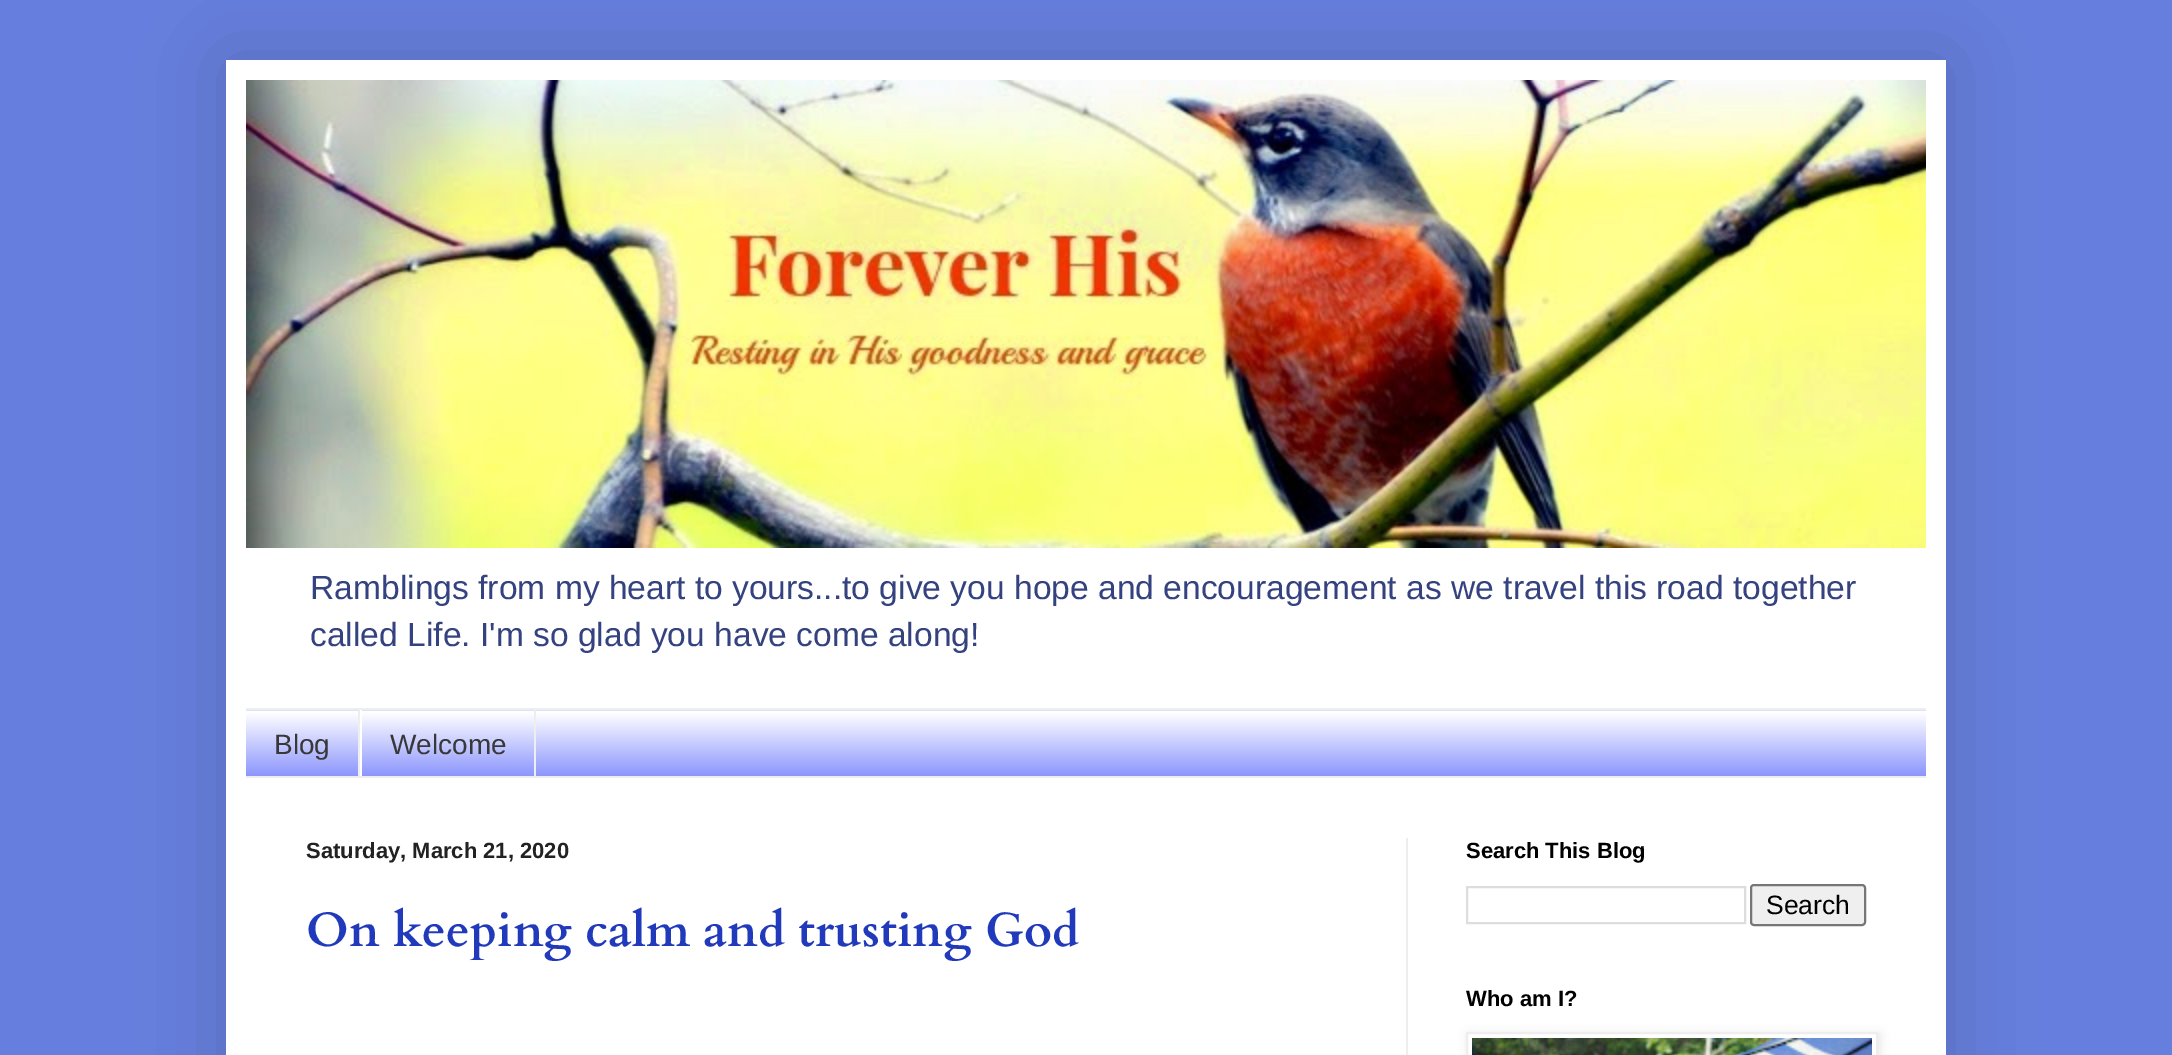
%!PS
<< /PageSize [2172 1055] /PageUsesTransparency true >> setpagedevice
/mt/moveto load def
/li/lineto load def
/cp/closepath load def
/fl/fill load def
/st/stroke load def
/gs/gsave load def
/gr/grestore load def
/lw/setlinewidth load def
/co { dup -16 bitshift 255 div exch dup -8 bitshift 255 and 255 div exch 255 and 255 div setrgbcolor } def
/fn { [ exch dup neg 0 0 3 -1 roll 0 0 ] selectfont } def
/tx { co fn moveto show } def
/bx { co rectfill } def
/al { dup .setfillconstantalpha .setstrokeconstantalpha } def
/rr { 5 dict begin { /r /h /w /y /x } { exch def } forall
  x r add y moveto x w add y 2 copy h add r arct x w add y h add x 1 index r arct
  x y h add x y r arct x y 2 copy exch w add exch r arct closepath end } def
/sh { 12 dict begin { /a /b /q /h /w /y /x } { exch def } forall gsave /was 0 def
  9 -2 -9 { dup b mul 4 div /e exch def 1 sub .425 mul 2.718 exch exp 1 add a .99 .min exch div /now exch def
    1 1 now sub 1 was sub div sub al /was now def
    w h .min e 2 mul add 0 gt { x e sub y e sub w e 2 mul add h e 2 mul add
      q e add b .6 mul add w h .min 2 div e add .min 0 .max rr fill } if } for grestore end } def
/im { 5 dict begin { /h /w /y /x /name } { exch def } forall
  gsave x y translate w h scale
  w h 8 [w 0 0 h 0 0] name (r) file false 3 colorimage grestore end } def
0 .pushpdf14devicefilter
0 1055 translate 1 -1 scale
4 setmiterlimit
0 0 2172 1055 16#667EDD bx
16#000000 co
226 60 1720 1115 0 40 .15 sh
226 60 1720 995 16#FFFFFF bx
(media/1.raw) 246 80 1680 468 im
246 710 1680 66 16#7681FC bx
(media/2.raw) 246 710 1680 66 im
246 708 1680 2 16#EEEEEE bx
246 776 1680 2 16#EEEEEE bx
358 710 2 66 16#EEEEEE bx
534 710 2 66 16#EEEEEE bx
360 710 2 66 16#FFFFFF bx
1406 838 2 217 16#EEEEEE bx
16#DDDDDD co
2 lw
1467 887 278 36 rectstroke
16#EFEFEF co
1751 885 114 40 3 rr gs fl gr
16#767676 co
st
gs
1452 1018 mt 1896 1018 li 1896 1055 li 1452 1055 li cp 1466 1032 mt 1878 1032 li 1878 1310 li 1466 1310 li cp eoclip newpath
16#000000 co
1468 1034 412 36 0 5 .1 sh
gr
16#EEEEEE co
1467 1033 410 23 rectstroke
(media/3.raw) 1472 1038 400 17 im
(Ramblings from my heart to yours...to give you hope and encouragement as we travel this road together) 310 599 /LiberationSans-Regular 33.6 16#34427F tx
(called Life. I'm so glad you have come along!) 310 646 /LiberationSans-Regular 33.6 16#34427F tx
(Blog) 274 754 /LiberationSans-Regular 28 16#383839 tx
(Welcome) 390 754 /LiberationSans-Regular 28 16#383839 tx
(Saturday, March 21, 2020) 306 858 /LiberationSans-Bold 22 16#222222 tx
(On keeping calm and trusting God) 306 946 /Cardo-Bold 48 16#213ABB tx
(Search This Blog) 1466 858 /LiberationSans-Bold 22 16#000000 tx
(Search) 1766 914 /LiberationSans-Regular 26.5 16#000000 tx
(Who am I?) 1466 1006 /LiberationSans-Bold 22 16#000000 tx
.poppdf14devicefilter showpage
